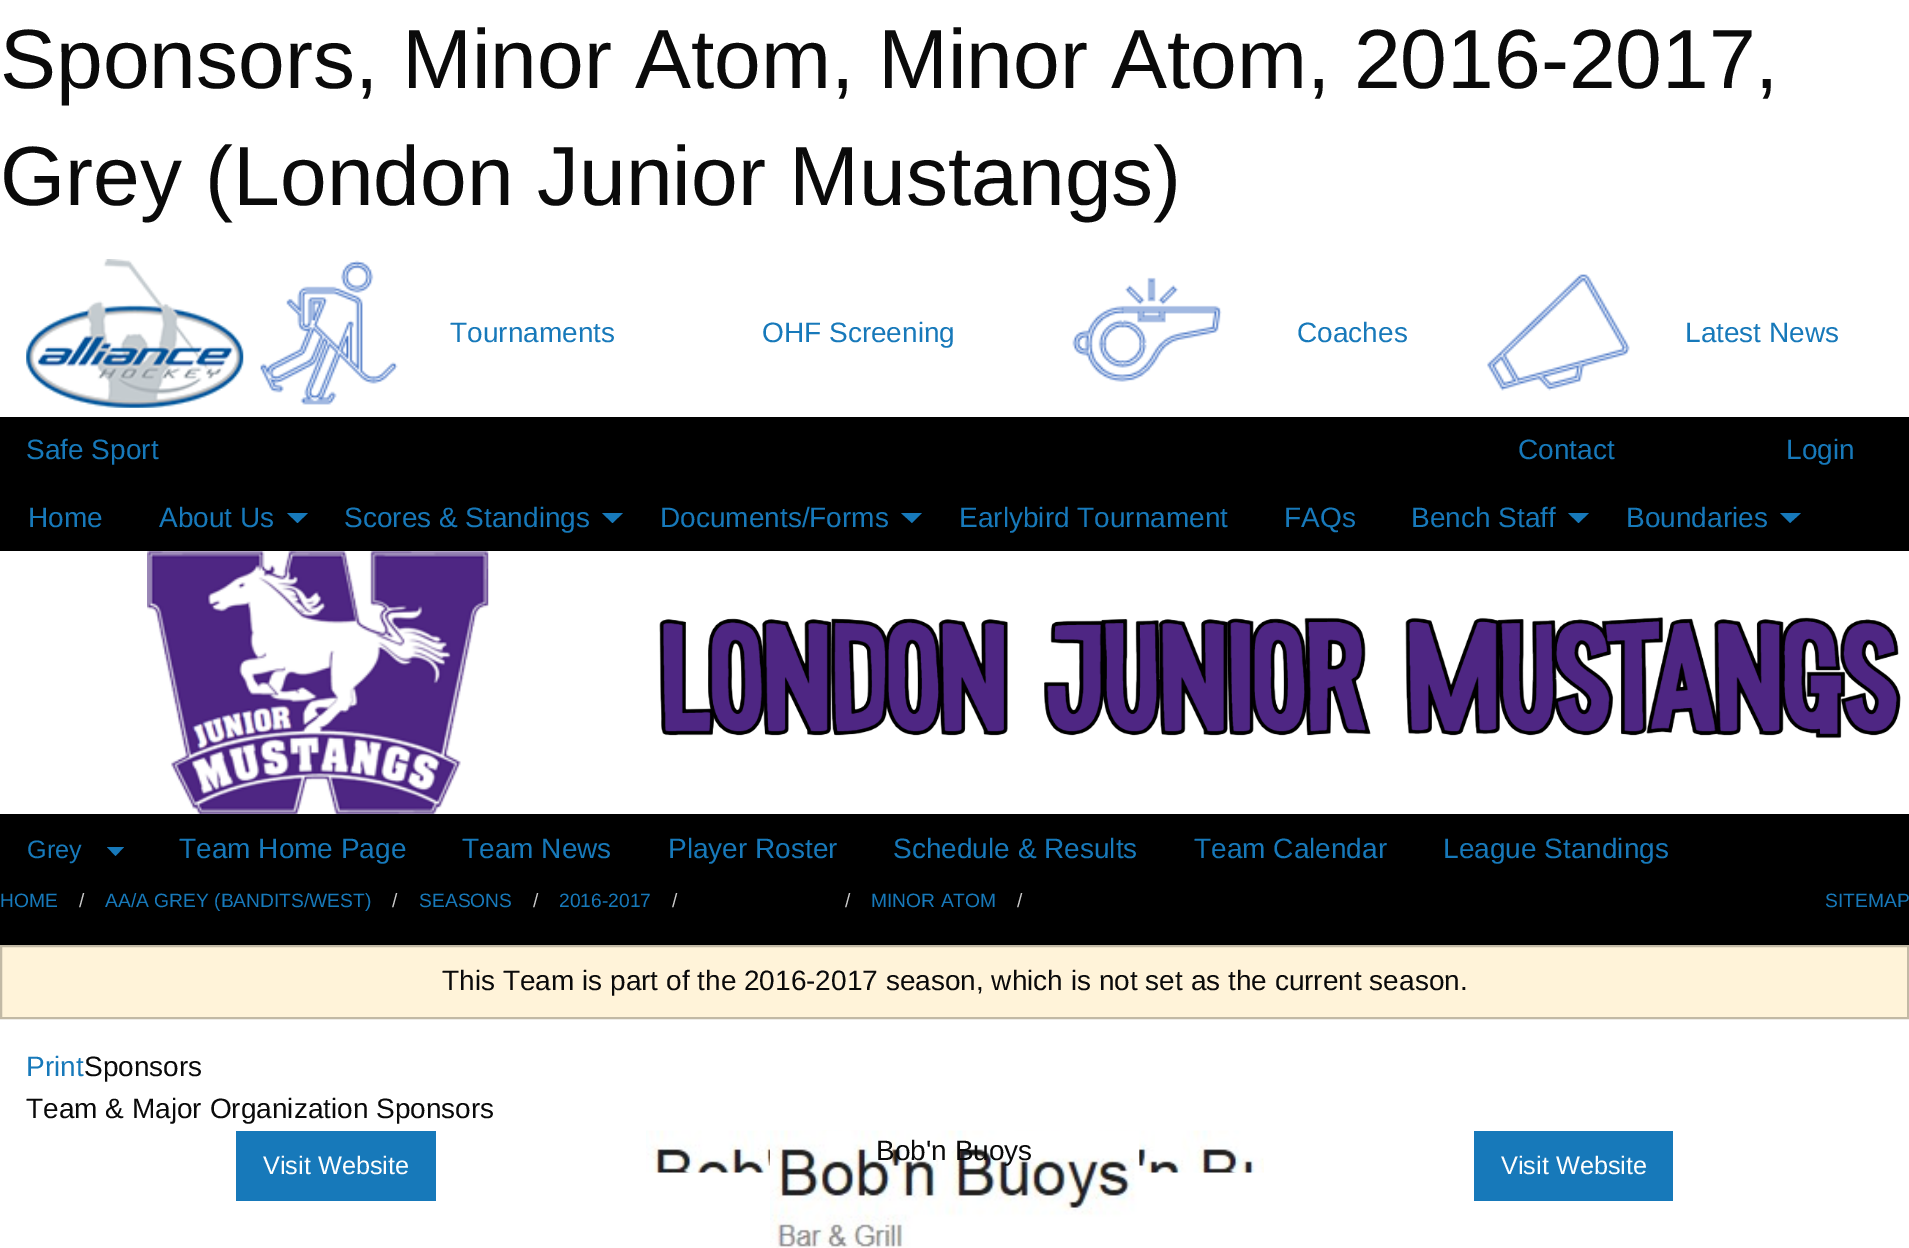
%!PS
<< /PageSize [1909 1248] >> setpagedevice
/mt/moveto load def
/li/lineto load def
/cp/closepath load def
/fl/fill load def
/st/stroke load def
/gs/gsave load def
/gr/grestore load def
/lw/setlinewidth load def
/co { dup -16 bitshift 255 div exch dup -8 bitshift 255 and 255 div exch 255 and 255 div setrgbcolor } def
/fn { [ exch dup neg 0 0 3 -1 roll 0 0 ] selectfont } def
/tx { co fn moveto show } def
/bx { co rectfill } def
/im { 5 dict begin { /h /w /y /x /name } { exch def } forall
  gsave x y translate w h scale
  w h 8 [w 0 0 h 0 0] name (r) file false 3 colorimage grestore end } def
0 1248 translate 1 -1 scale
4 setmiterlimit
0 0 1909 1248 16#FFFFFF bx
(media/1.raw) 26 259 218 149 im
(media/2.raw) 260 260 138 145 im
(media/3.raw) 1072 277 150 105 im
(media/4.raw) 1487 274 143 117 im
0 417 1909 528 16#000000 bx
16#1779BA co
287 513 mt 308 513 li 297.5 523 li cp fl
602 513 mt 623 513 li 612.5 523 li cp fl
901 513 mt 922 513 li 912 523 li cp fl
1568 513 mt 1589 513 li 1578.5 523 li cp fl
1780 513 mt 1801 513 li 1790 523 li cp fl
0 551 1909 263 16#FFFFFF bx
(media/5.raw) 147 551 342 263 im
(media/6.raw) 659 617 1242 122 im
16#1779BA co
107 847 mt 124 847 li 115.5 856 li cp fl
16#FFF3D9 co
1 946 mt 1908 946 li 1908 1018 li 1 1018 li cp gs fl gr
16#C2B9A5 co
2 lw
st
236 1131 200 70 16#1779BA bx
(media/7.raw) 646 1130 618 43 im
(media/8.raw) 770 1130 370 118 im
1474 1131 199 70 16#1779BA bx
(Sponsors, Minor Atom, Minor Atom, 2016-2017,) 0 88 /LiberationSans-Regular 84 16#0A0A0A tx
(Grey \(London Junior Mustangs\)) 0 205 /LiberationSans-Regular 84 16#0A0A0A tx
(Tournaments) 450 342 /LiberationSans-Regular 28 16#1779BA tx
(OHF Screening) 762 342 /LiberationSans-Regular 28 16#1779BA tx
(Coaches) 1297 342 /LiberationSans-Regular 28 16#1779BA tx
(Latest News) 1685 342 /LiberationSans-Regular 28 16#1779BA tx
(Safe Sport) 26 459 /LiberationSans-Regular 28 16#1779BA tx
(Contact) 1518 459 /LiberationSans-Regular 28 16#1779BA tx
(Login) 1786 459 /LiberationSans-Regular 28 16#1779BA tx
(Home) 28 527 /LiberationSans-Regular 28 16#1779BA tx
(About Us) 159 527 /LiberationSans-Regular 28 16#1779BA tx
(Scores & Standings) 344 527 /LiberationSans-Regular 28 16#1779BA tx
(Documents/Forms) 660 527 /LiberationSans-Regular 28 16#1779BA tx
(Earlybird Tournament) 959 527 /LiberationSans-Regular 28 16#1779BA tx
(FAQs) 1284 527 /LiberationSans-Regular 28 16#1779BA tx
(Bench Staff) 1411 527 /LiberationSans-Regular 28 16#1779BA tx
(Boundaries) 1626 527 /LiberationSans-Regular 28 16#1779BA tx
(Grey) 27 858 /LiberationSans-Regular 25.25 16#1779BA tx
(Team Home Page) 179 858 /LiberationSans-Regular 28 16#1779BA tx
(Team News) 462 858 /LiberationSans-Regular 28 16#1779BA tx
(Player Roster) 668 858 /LiberationSans-Regular 28 16#1779BA tx
(Schedule & Results) 893 858 /LiberationSans-Regular 28 16#1779BA tx
(Team Calendar) 1194 858 /LiberationSans-Regular 28 16#1779BA tx
(League Standings) 1443 858 /LiberationSans-Regular 28 16#1779BA tx
(HOME) 0 907 /LiberationSans-Regular 19.25 16#1779BA tx
(/) 79 907 /LiberationSans-Regular 19.25 16#CACACA tx
(AA/A GREY \(BANDITS/WEST\)) 105 907 /LiberationSans-Regular 19.25 16#1779BA tx
(/) 392 907 /LiberationSans-Regular 19.25 16#CACACA tx
(SEASONS) 419 907 /LiberationSans-Regular 19.25 16#1779BA tx
(/) 533 907 /LiberationSans-Regular 19.25 16#CACACA tx
(2016-2017) 559 907 /LiberationSans-Regular 19.25 16#1779BA tx
(/) 672 907 /LiberationSans-Regular 19.25 16#CACACA tx
(/) 845 907 /LiberationSans-Regular 19.25 16#CACACA tx
(MINOR ATOM) 871 907 /LiberationSans-Regular 19.25 16#1779BA tx
(/) 1017 907 /LiberationSans-Regular 19.25 16#CACACA tx
(SITEMAP) 1825 907 /LiberationSans-Regular 19.25 16#1779BA tx
(This Team is part of the 2016-2017 season, which is not set as the current season.) 442 990 /LiberationSans-Regular 28 16#0A0A0A tx
(Print) 26 1076 /LiberationSans-Regular 28 16#1779BA tx
(Sponsors) 84 1076 /LiberationSans-Regular 28 16#0A0A0A tx
(Team & Major Organization Sponsors) 26 1118 /LiberationSans-Regular 28 16#0A0A0A tx
(Visit Website) 263 1174 /LiberationSans-Regular 25.25 16#FEFEFE tx
(Bob'n Buoys) 876 1160 /LiberationSans-Regular 28 16#0A0A0A tx
(Visit Website) 1501 1174 /LiberationSans-Regular 25.25 16#FEFEFE tx
showpage
